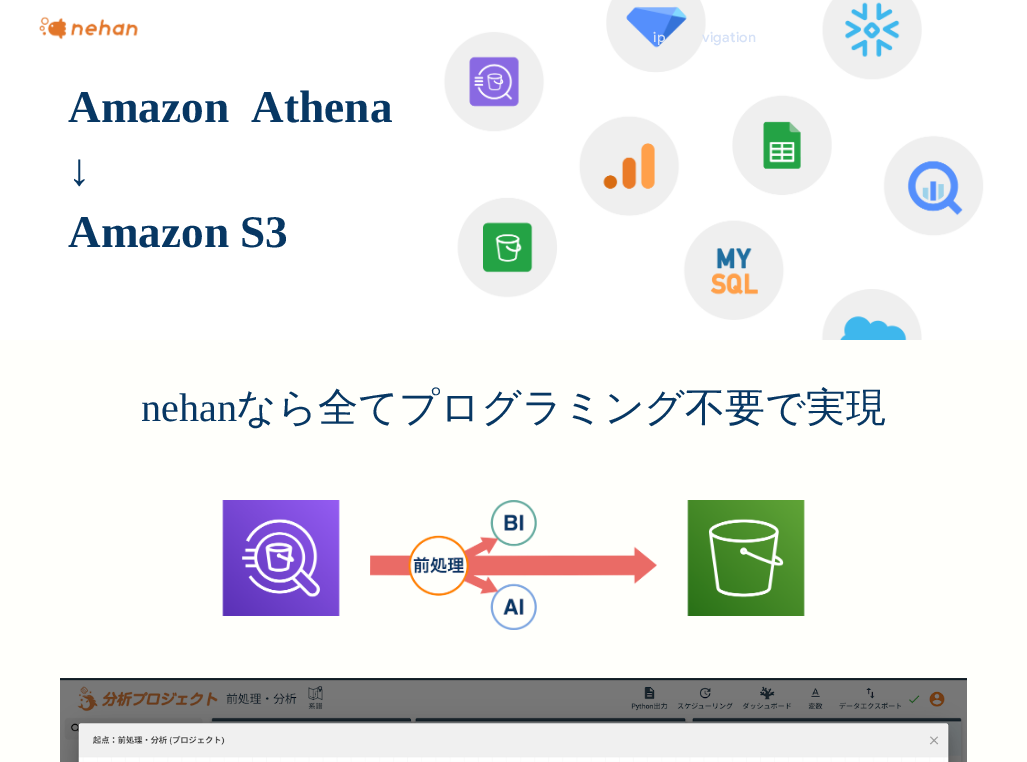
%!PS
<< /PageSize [1027 762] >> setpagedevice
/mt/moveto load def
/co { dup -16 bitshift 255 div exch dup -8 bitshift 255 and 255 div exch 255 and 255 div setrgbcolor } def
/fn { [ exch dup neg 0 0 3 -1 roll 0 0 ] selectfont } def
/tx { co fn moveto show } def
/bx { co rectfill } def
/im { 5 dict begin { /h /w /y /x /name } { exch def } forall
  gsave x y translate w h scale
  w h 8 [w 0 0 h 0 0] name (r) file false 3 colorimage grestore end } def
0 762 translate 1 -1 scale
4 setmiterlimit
0 0 1027 762 16#FFFFFB bx
(media/2.raw) 0 0 1027 340 im
(media/1.raw) 39 16 99 24 im
(media/3.raw) 222 500 118 116 im
(media/4.raw) 370 500 287 130 im
(media/5.raw) 687 500 118 116 im
(media/6.raw) 60 678 907 84 im
/GoogleSans-Medium 14 fn
16#D5E1F7 co
653 42 mt .25 0 (ip) ashow
702 42 mt .25 0 (vigation) ashow
(Amazon  Athena) 68 122 /LiberationSerif-Bold 45.25 16#073763 tx
(↓) 68 185 /LiberationSerif-Bold 45.25 16#073763 tx
(Amazon S3) 68 247 /LiberationSerif-Bold 45.25 16#073763 tx
(nehan) 141 421 /LiberationSerif-Regular 40 16#073763 tx
(なら全てプログラミング不要で実現) 236 421 /WenQuanYiZenHei-Medium 40 16#073763 tx
showpage
